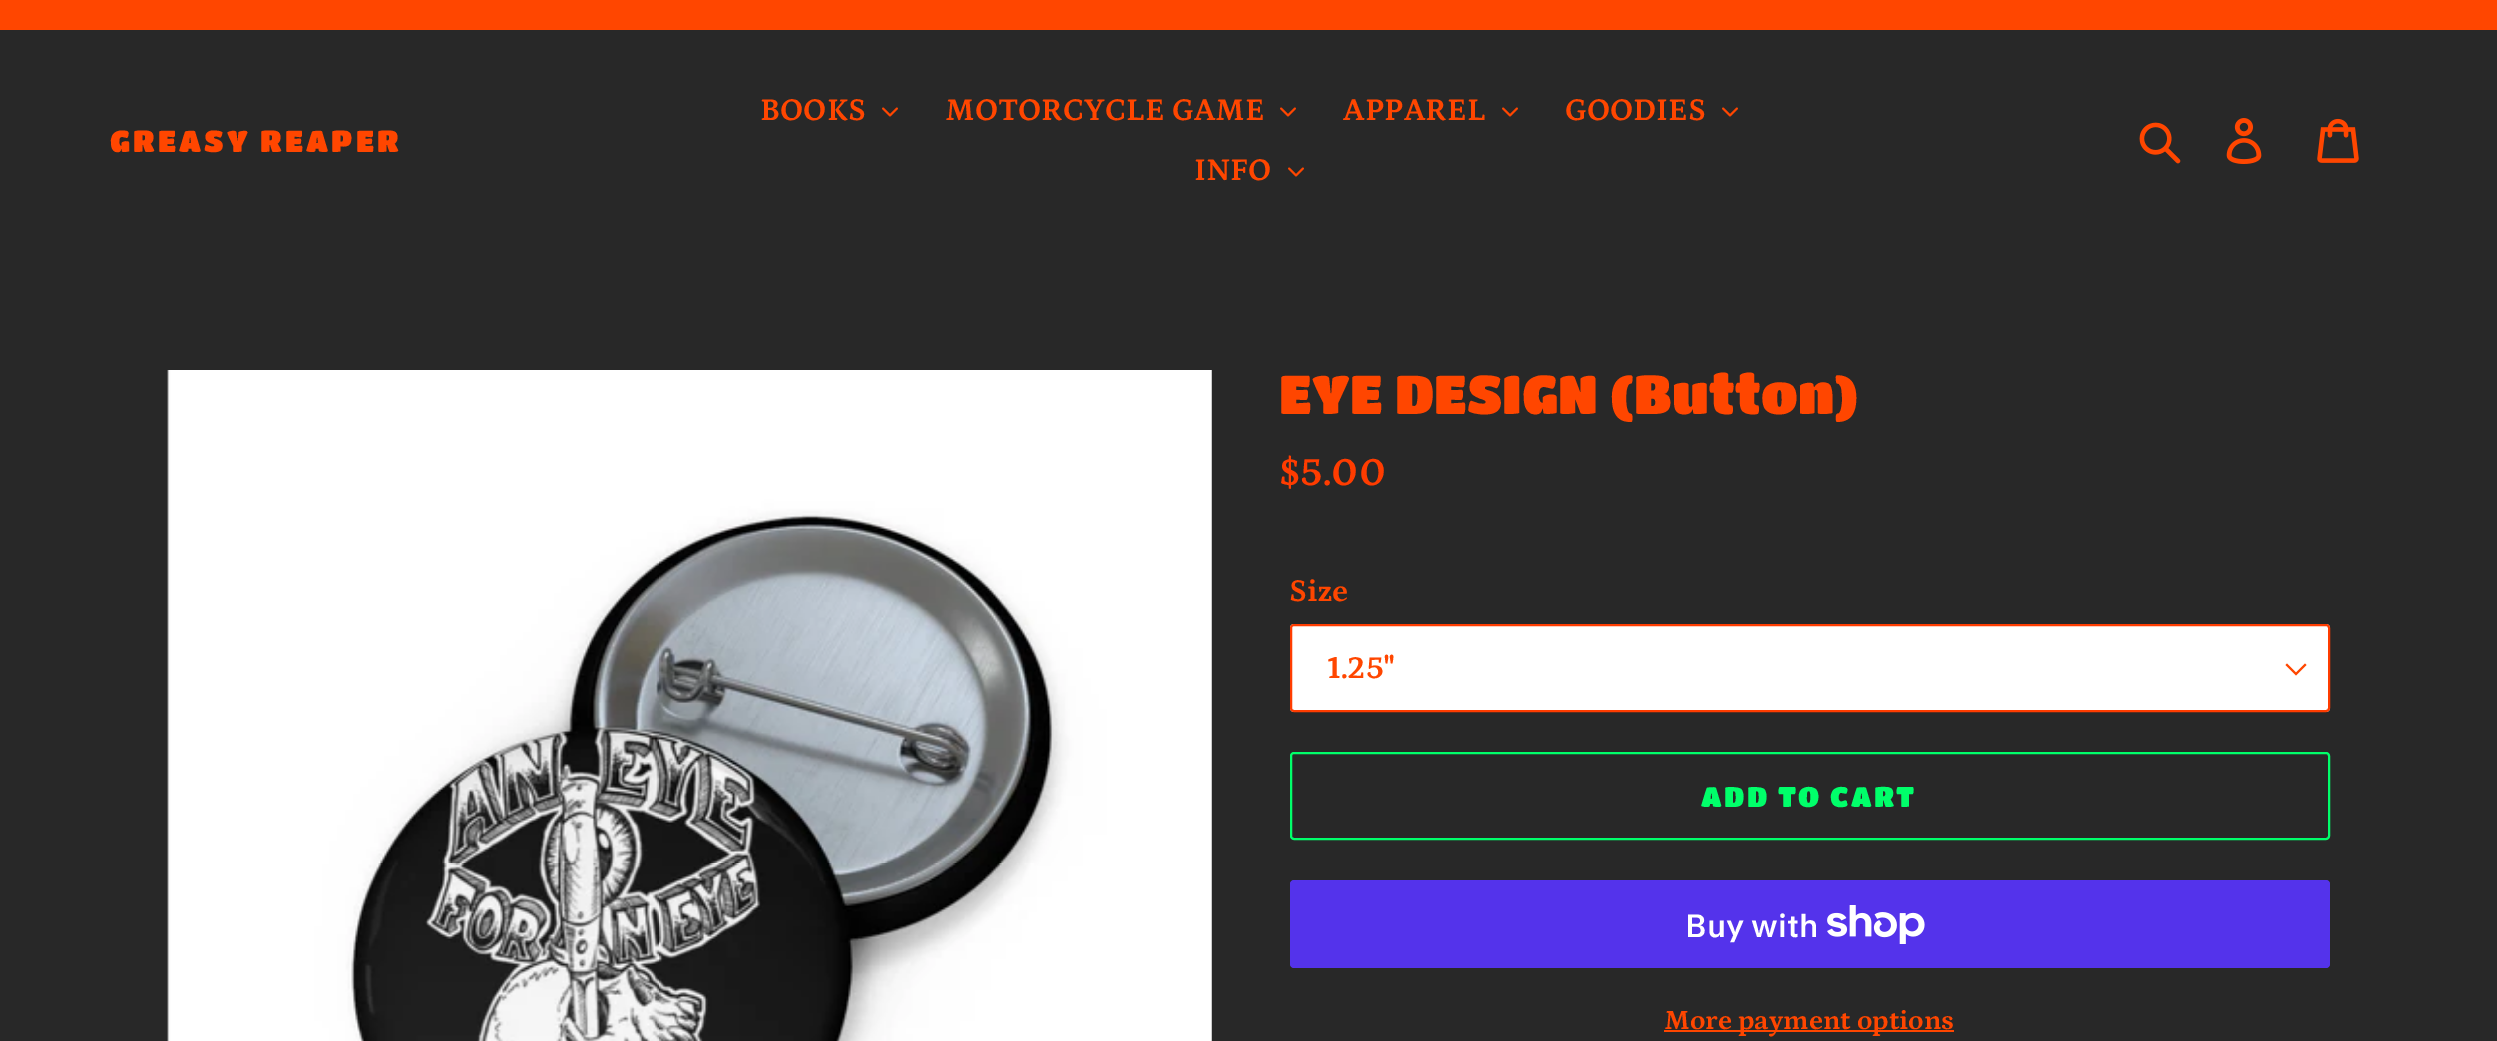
%!PS
<< /PageSize [2497 1041] >> setpagedevice
/mt/moveto load def
/li/lineto load def
/cp/closepath load def
/fl/fill load def
/st/stroke load def
/lw/setlinewidth load def
/co { dup -16 bitshift 255 div exch dup -8 bitshift 255 and 255 div exch 255 and 255 div setrgbcolor } def
/fn { [ exch dup neg 0 0 3 -1 roll 0 0 ] selectfont } def
/tx { co fn moveto show } def
/bx { co rectfill } def
/rr { 5 dict begin { /r /h /w /y /x } { exch def } forall
  x r add y moveto x w add y 2 copy h add r arct x w add y h add x 1 index r arct
  x y h add x y r arct x y 2 copy exch w add exch r arct closepath end } def
/im { 5 dict begin { /h /w /y /x /name } { exch def } forall
  gsave x y translate w h scale
  w h 8 [w 0 0 h 0 0] name (r) file false 3 colorimage grestore end } def
0 1041 translate 1 -1 scale
4 setmiterlimit
0 0 2497 1041 16#282828 bx
0 0 2497 30 16#FF4600 bx
(media/1.raw) 882 107 16 10 im
(media/1.raw) 1280 107 16 10 im
(media/1.raw) 1502 107 16 10 im
(media/1.raw) 1722 107 16 10 im
(media/1.raw) 1288 167 16 10 im
(media/2.raw) 2139 122 42 42 im
(media/3.raw) 2226 118 36 46 im
(media/4.raw) 2317 118 42 45 im
(media/5.raw) 167 370 1045 671 im
16#FFFFFF co
1290 624 1040 88 4 rr fl
16#FF4600 co
2296 675.5 mt 2285.5 665 li 2287 663.5 li 2296 672.5 li 2305 663.5 li 2306.5 665 li cp fl
16#FF3C00 co
2 lw
1291 625 1038 86 3 rr st
16#00FF6A co
1291 753 1038 86 3 rr st
16#5433EB co
1290 880 1040 88 4 rr fl
(media/6.raw) 1827 905 98 39 im
1664 1030 290 2 16#FF4600 bx
/TitanOne-Regular 30 fn
110 152 mt 3 0 (GREASY REAPER) ashow
(BOOKS) 760 120 /Petrona-Bold 32 16#FF4600 tx
(MOTORCYCLE GAME) 945 120 /Petrona-Bold 32 16#FF4600 tx
(APPAREL) 1343 120 /Petrona-Bold 32 16#FF4600 tx
(GOODIES) 1565 120 /Petrona-Bold 32 16#FF4600 tx
(INFO) 1194 180 /Petrona-Bold 32 16#FF4600 tx
(EYE DESIGN \(Button\)) 1279 414 /TitanOne-Regular 54 16#FF4600 tx
($5.00) 1279 485 /Petrona-Bold 40 16#FF3C00 tx
(Size) 1289 601 /Petrona-Bold 32 16#FF4600 tx
(1.25") 1327 678 /Petrona-Bold 32 16#FF4600 tx
/TitanOne-Regular 28 fn
16#00FF6A co
1701 807 mt 2.25 0 (ADD TO CART) ashow
(Buy with) 1685 937 /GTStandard-SemiBold 32 16#FFFFFF tx
(More payment options) 1664 1029 /Petrona-Bold 28 16#FF4600 tx
showpage
